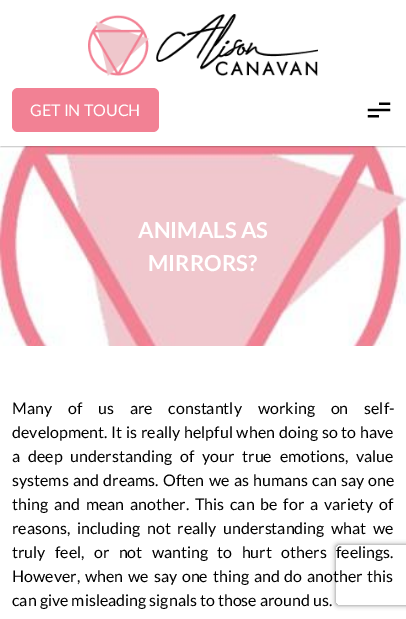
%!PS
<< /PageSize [406 619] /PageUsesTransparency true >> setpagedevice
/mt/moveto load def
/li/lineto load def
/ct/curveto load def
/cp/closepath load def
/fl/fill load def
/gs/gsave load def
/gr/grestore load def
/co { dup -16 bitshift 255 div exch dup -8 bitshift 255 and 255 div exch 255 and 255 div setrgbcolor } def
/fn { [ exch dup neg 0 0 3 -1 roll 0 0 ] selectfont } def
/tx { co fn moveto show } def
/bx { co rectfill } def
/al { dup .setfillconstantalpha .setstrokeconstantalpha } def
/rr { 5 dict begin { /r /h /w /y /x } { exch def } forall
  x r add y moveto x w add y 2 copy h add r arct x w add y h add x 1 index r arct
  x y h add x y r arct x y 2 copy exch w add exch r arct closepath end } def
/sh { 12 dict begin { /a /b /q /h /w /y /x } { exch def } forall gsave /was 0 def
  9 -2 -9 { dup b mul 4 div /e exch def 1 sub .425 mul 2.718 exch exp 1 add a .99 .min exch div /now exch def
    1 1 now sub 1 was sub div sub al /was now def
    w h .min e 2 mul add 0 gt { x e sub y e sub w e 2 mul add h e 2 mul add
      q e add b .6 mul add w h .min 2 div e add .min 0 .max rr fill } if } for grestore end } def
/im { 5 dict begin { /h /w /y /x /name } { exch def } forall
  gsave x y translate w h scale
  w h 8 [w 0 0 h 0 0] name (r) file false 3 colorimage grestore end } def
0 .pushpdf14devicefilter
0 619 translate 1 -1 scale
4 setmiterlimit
0 0 406 619 16#FFFFFF bx
(media/3.raw) 0 146 406 200 im
gs
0 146 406 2 rectclip
16#000000 co
1 1 404 144 0 1.5 1 sh
gr
(media/1.raw) 88 14 230 62 im
16#F28194 co
12 88 147 44 6 rr fl
(media/2.raw) 367 102 24 16 im
gs
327 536 mt 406 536 li 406 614 li 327 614 li cp 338 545 mt 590 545 li 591 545 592 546 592 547 ct 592 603 li 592 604 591 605 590 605 ct 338 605 li 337 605 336 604 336 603 ct 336 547 li 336 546 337 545 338 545 ct cp eoclip newpath
16#808080 co
336 545 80 60 2 2.5 1 sh
gr
(GET IN TOUCH) 30 116 /Lato-Regular 16 16#FFFFFF tx
(ANIMALS AS) 138 238 /Lato-Bold 22 16#FFFFFF tx
(MIRRORS?) 148 271 /Lato-Bold 22 16#FFFFFF tx
/Lato-Regular 16 fn
16#000000 co
12 414 mt 12.75 0 32 (Many of us are constantly working on self-) widthshow
12 438 mt .75 0 32 (development. It is really helpful when doing so to have) widthshow
12 462 mt 4.75 0 32 (a deep understanding of your true emotions, value) widthshow
12 486 mt 1.25 0 32 (systems and dreams. Often we as humans can say one) widthshow
12 510 mt 2.75 0 32 (thing and mean another. This can be for a variety of) widthshow
12 534 mt 3.5 0 32 (reasons, including not really understanding what we) widthshow
12 558 mt 6.25 0 32 (truly feel, or not wanting to hurt others feelings.) widthshow
12 582 mt 1.75 0 32 (However, when we say one thing and do another this) widthshow
(can give misleading signals to those around us.) 12 606 /Lato-Regular 16 16#000000 tx
.poppdf14devicefilter showpage
